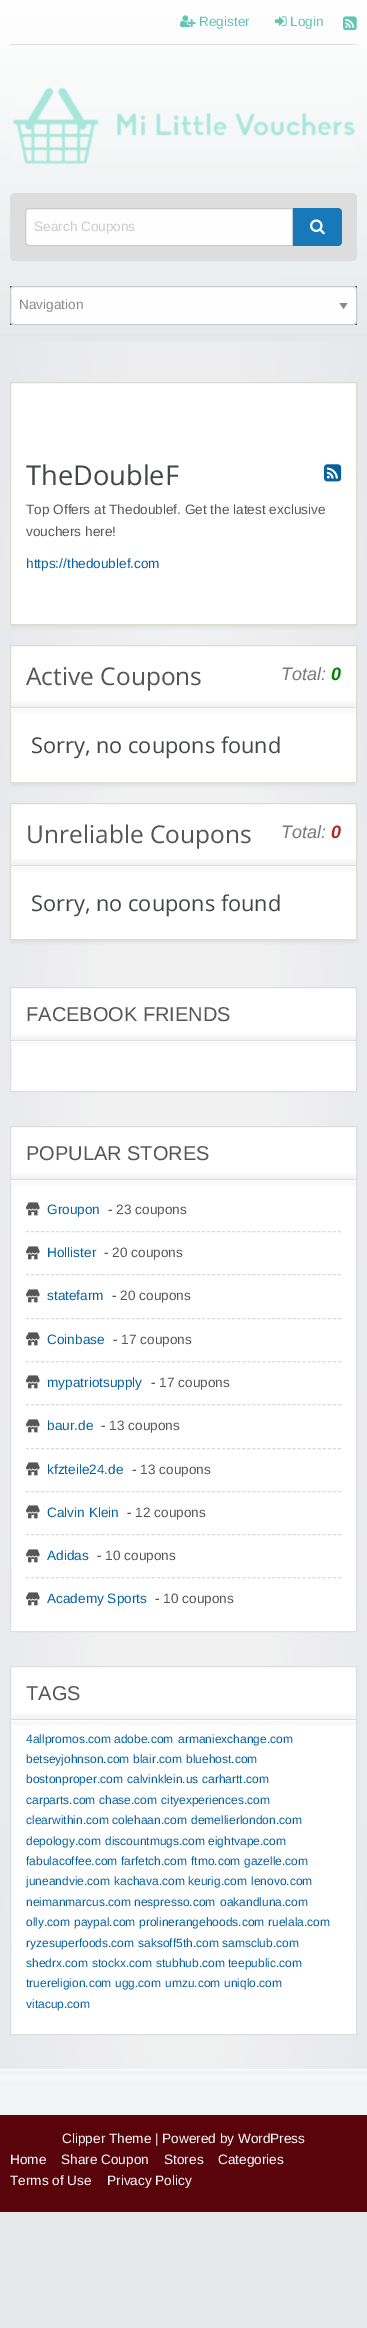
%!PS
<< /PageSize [367 2328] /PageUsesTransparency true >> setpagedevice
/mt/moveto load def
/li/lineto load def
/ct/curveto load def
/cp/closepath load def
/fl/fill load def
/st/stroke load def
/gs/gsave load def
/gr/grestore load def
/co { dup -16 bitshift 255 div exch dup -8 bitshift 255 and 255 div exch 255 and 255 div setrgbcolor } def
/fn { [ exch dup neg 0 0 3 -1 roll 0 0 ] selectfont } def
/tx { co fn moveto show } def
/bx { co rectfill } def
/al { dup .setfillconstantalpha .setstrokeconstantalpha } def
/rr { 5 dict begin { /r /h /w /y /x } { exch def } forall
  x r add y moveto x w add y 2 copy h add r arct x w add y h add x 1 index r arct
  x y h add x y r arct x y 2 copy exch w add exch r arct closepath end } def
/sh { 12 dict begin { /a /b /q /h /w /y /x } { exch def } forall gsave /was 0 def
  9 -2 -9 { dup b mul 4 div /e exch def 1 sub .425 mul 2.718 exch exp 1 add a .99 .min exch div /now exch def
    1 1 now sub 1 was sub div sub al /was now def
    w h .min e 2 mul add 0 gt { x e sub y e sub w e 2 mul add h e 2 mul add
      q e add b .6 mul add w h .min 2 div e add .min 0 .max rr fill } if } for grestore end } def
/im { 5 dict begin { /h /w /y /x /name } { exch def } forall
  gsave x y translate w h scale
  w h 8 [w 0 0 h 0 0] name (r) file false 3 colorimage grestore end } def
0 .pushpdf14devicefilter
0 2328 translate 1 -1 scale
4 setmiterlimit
0 0 367 2328 16#E5E8EA bx
gs 0 341 mt 367 341 li 367 2069 li 0 2069 li cp clip newpath 184 1327 translate 260 1877 scale
<< /ShadingType 3 /ColorSpace /DeviceRGB /Coords [0 0 0 0 0 1] /Extend [true true] /Function << /FunctionType 3 /Domain [0 1] /Functions [<< /FunctionType 2 /Domain [0 1] /C0 [.945 .945 .945] /C1 [.945 .945 .945] /N 1 >> << /FunctionType 2 /Domain [0 1] /C0 [.945 .945 .945] /C1 [.894 .902 .922] /N 1 >>] /Bounds [.35] /Encode [0 1 0 1] >> >> shfill gr
gs 0 0 mt 367 0 li 367 334 li 0 334 li cp clip newpath
<< /ShadingType 2 /ColorSpace /DeviceRGB /Coords [183 0 184 341] /Extend [true true] /Function << /FunctionType 2 /Domain [0 1] /C0 [1 1 1] /C1 [.906 .918 .922] /N 1 >> >> shfill gr
10 44 347 1 16#DDDDDD bx
(media/1.raw) 180 15 16 12 im
(media/2.raw) 275 16 12 10 im
(media/3.raw) 343 16 14 15 im
(media/4.raw) 12 87 343 77 im
10 193 347 68 5 rr fl
16#FEFEFE co
29 208.5 mt 292.5 208.5 li 292.5 245.5 li 29 245.5 li 27 245.5 25.5 244 25.5 242 ct 25.5 212 li 25.5 210 27 208.5 29 208.5 ct cp gs fl gr
16#CACACA co
st
16#1779BA co
293 208 mt 338 208 li 340 208 342 210 342 212 ct 342 242 li 342 244 340 246 338 246 ct 293 246 li cp fl
(media/5.raw) 310 219 15 16 im
10 286 347 39 16#444444 bx
16#FEFEFE co
10 286 347 39 4 rr fl
16#8A8A8A co
339.5 303 mt 347.5 303 li 343.5 309 li cp fl
16#CACACA co
10.5 286.5 346 38 3.5 rr st
16#DBDBDB co
12 388 343 239 0 2 1 sh
16#FFFFFF co
10.5 382.5 mt 356.5 382.5 li 356.5 624.5 li 10.5 624.5 li cp gs fl gr
16#DEDBD1 co
st
(media/6.raw) 324 464 18 18 im
16#DBDBDB co
12 651 343 134 0 2 1 sh
16#FFFFFF co
10.5 645.5 mt 356.5 645.5 li 356.5 782.5 li 10.5 782.5 li cp gs fl gr
16#DEDBD1 co
st
(media/7.raw) 11 701 345 13 im
16#DBDBDB co
12 809 343 133 0 2 1 sh
16#FFFFFF co
10.5 803.5 mt 356.5 803.5 li 356.5 939.5 li 10.5 939.5 li cp gs fl gr
16#DEDBD1 co
st
(media/7.raw) 11 859 345 13 im
16#FFFFFF co
10.5 987.5 mt 356.5 987.5 li 356.5 1091.5 li 10.5 1091.5 li cp gs fl gr
16#DDDDDD co
st
(media/7.raw) 11 1034 345 13 im
16#FFFFFF co
10.5 1126.5 mt 356.5 1126.5 li 356.5 1631.5 li 10.5 1631.5 li cp gs fl gr
16#DDDDDD co
st
(media/7.raw) 11 1173 345 13 im
16#DBDBDB co
[3 2.03] 0 setdash
26 1231.5 mt 341 1231.5 li st
(media/8.raw) 26 1202 14 14 im
26 1274.5 mt 341 1274.5 li st
(media/8.raw) 26 1246 14 14 im
26 1318.5 mt 341 1318.5 li st
(media/8.raw) 26 1289 14 14 im
26 1361.5 mt 341 1361.5 li st
(media/8.raw) 26 1332 14 14 im
26 1404.5 mt 341 1404.5 li st
(media/8.raw) 26 1375 14 14 im
26 1448.5 mt 341 1448.5 li st
(media/8.raw) 26 1419 14 14 im
26 1491.5 mt 341 1491.5 li st
(media/8.raw) 26 1462 14 14 im
26 1534.5 mt 341 1534.5 li st
(media/8.raw) 26 1505 14 14 im
26 1577.5 mt 341 1577.5 li st
(media/8.raw) 26 1549 14 14 im
(media/8.raw) 26 1592 14 14 im
16#FFFFFF co
10.5 1666.5 mt 356.5 1666.5 li 356.5 2034.5 li 10.5 2034.5 li cp gs fl gr
16#DDDDDD co
[] 0 setdash
st
(media/7.raw) 11 1713 345 13 im
0 2070 367 45 16#F1F3F4 bx
0 2075 367 6 16#F6F7F8 bx
0 2069 367 1 16#FFFFFF bx
0 2115 367 97 16#58040A bx
(Register) 199 26 /LiberationSans-Regular 13.6 16#63C4B2 tx
(Login) 290 26 /LiberationSans-Regular 13.6 16#63C4B2 tx
(Search Coupons) 34 231 /LiberationSans-Regular 13.6 16#CACACA tx
(Navigation) 19 309 /LiberationSans-Regular 13.6 16#8A8A8A tx
(TheDoubleF) 26 485 /OpenSans-Regular 27.25 16#43464A tx
(Top Offers at Thedoublef. Get the latest exclusive) 26 514 /LiberationSans-Regular 13.6 16#565656 tx
(vouchers here!) 26 536 /LiberationSans-Regular 13.6 16#565656 tx
(https://thedoublef.com) 26 568 /LiberationSans-Regular 13.6 16#07609E tx
(Active Coupons) 26 685 /OpenSans-Regular 24.5 16#565656 tx
(Total:) 281 680 /LiberationSans-Italic 18 16#7A7A7A tx
(0) 331 680 /LiberationSans-BoldItalic 18 16#008000 tx
(Sorry, no coupons found) 31 753 /OpenSans-Regular 21.75 16#43464A tx
(Unreliable Coupons) 26 843 /OpenSans-Regular 24.5 16#565656 tx
(Total:) 281 838 /LiberationSans-Italic 18 16#7A7A7A tx
(0) 331 838 /LiberationSans-BoldItalic 18 16#A92C2C tx
(Sorry, no coupons found) 31 911 /OpenSans-Regular 21.75 16#43464A tx
(FACEBOOK FRIENDS) 26 1021 /LiberationSans-Regular 20 16#565656 tx
(POPULAR STORES) 26 1160 /LiberationSans-Regular 20 16#565656 tx
(Groupon) 47 1214 /LiberationSans-Regular 13.6 16#07609E tx
(- 23 coupons) 108 1214 /LiberationSans-Regular 13.6 16#565656 tx
(Hollister) 47 1257 /LiberationSans-Regular 13.6 16#07609E tx
(- 20 coupons) 104 1257 /LiberationSans-Regular 13.6 16#565656 tx
(statefarm) 47 1300 /LiberationSans-Regular 13.6 16#07609E tx
(- 20 coupons) 112 1300 /LiberationSans-Regular 13.6 16#565656 tx
(Coinbase) 47 1344 /LiberationSans-Regular 13.6 16#07609E tx
(- 17 coupons) 113 1344 /LiberationSans-Regular 13.6 16#565656 tx
(mypatriotsupply) 47 1387 /LiberationSans-Regular 13.6 16#07609E tx
(- 17 coupons) 151 1387 /LiberationSans-Regular 13.6 16#565656 tx
(baur.de) 47 1430 /LiberationSans-Regular 13.6 16#07609E tx
(- 13 coupons) 101 1430 /LiberationSans-Regular 13.6 16#565656 tx
(kfzteile24.de) 47 1474 /LiberationSans-Regular 13.6 16#07609E tx
(- 13 coupons) 132 1474 /LiberationSans-Regular 13.6 16#565656 tx
(Calvin Klein) 47 1517 /LiberationSans-Regular 13.6 16#07609E tx
(- 12 coupons) 127 1517 /LiberationSans-Regular 13.6 16#565656 tx
(Adidas) 47 1560 /LiberationSans-Regular 13.6 16#07609E tx
(- 10 coupons) 97 1560 /LiberationSans-Regular 13.6 16#565656 tx
(Academy Sports) 47 1603 /LiberationSans-Regular 13.6 16#07609E tx
(- 10 coupons) 155 1603 /LiberationSans-Regular 13.6 16#565656 tx
(TAGS) 26 1700 /LiberationSans-Regular 20 16#565656 tx
(4allpromos.com) 26 1743 /LiberationSans-Regular 12 16#07609E tx
(adobe.com) 114 1743 /LiberationSans-Regular 12 16#07609E tx
(armaniexchange.com) 178 1743 /LiberationSans-Regular 12 16#07609E tx
(betseyjohnson.com) 26 1763 /LiberationSans-Regular 12 16#07609E tx
(blair.com) 133 1763 /LiberationSans-Regular 12 16#07609E tx
(bluehost.com) 186 1763 /LiberationSans-Regular 12 16#07609E tx
(bostonproper.com) 26 1783 /LiberationSans-Regular 12 16#07609E tx
(calvinklein.us) 127 1783 /LiberationSans-Regular 12 16#07609E tx
(carhartt.com) 202 1783 /LiberationSans-Regular 12 16#07609E tx
(carparts.com) 26 1804 /LiberationSans-Regular 12 16#07609E tx
(chase.com) 99 1804 /LiberationSans-Regular 12 16#07609E tx
(cityexperiences.com) 161 1804 /LiberationSans-Regular 12 16#07609E tx
(clearwithin.com) 26 1824 /LiberationSans-Regular 12 16#07609E tx
(colehaan.com) 112 1824 /LiberationSans-Regular 12 16#07609E tx
(demellierlondon.com) 191 1824 /LiberationSans-Regular 12 16#07609E tx
(depology.com) 26 1845 /LiberationSans-Regular 12 16#07609E tx
(discountmugs.com) 105 1845 /LiberationSans-Regular 12 16#07609E tx
(eightvape.com) 208 1845 /LiberationSans-Regular 12 16#07609E tx
(fabulacoffee.com) 26 1865 /LiberationSans-Regular 12 16#07609E tx
(farfetch.com) 121 1865 /LiberationSans-Regular 12 16#07609E tx
(ftmo.com) 191 1865 /LiberationSans-Regular 12 16#07609E tx
(gazelle.com) 244 1865 /LiberationSans-Regular 12 16#07609E tx
(juneandvie.com) 26 1885 /LiberationSans-Regular 12 16#07609E tx
(kachava.com) 114 1885 /LiberationSans-Regular 12 16#07609E tx
(keurig.com) 188 1885 /LiberationSans-Regular 12 16#07609E tx
(lenovo.com) 251 1885 /LiberationSans-Regular 12 16#07609E tx
(neimanmarcus.com) 26 1906 /LiberationSans-Regular 12 16#07609E tx
(nespresso.com) 134 1906 /LiberationSans-Regular 12 16#07609E tx
(oakandluna.com) 220 1906 /LiberationSans-Regular 12 16#07609E tx
(olly.com) 26 1926 /LiberationSans-Regular 12 16#07609E tx
(paypal.com) 74 1926 /LiberationSans-Regular 12 16#07609E tx
(prolinerangehoods.com) 139 1926 /LiberationSans-Regular 12 16#07609E tx
(ruelala.com) 268 1926 /LiberationSans-Regular 12 16#07609E tx
(ryzesuperfoods.com) 26 1947 /LiberationSans-Regular 12 16#07609E tx
(saksoff5th.com) 138 1947 /LiberationSans-Regular 12 16#07609E tx
(samsclub.com) 222 1947 /LiberationSans-Regular 12 16#07609E tx
(shedrx.com) 26 1967 /LiberationSans-Regular 12 16#07609E tx
(stockx.com) 92 1967 /LiberationSans-Regular 12 16#07609E tx
(stubhub.com) 156 1967 /LiberationSans-Regular 12 16#07609E tx
(teepublic.com) 228 1967 /LiberationSans-Regular 12 16#07609E tx
(truereligion.com) 26 1987 /LiberationSans-Regular 12 16#07609E tx
(ugg.com) 115 1987 /LiberationSans-Regular 12 16#07609E tx
(umzu.com) 165 1987 /LiberationSans-Regular 12 16#07609E tx
(uniqlo.com) 224 1987 /LiberationSans-Regular 12 16#07609E tx
(vitacup.com) 26 2008 /LiberationSans-Regular 12 16#07609E tx
(Clipper Theme | Powered by WordPress) 62 2143 /LiberationSans-Regular 13.6 16#FFFFFF tx
(Home) 10 2164 /LiberationSans-Regular 13.6 16#FFFFFF tx
(Share Coupon) 61 2164 /LiberationSans-Regular 13.6 16#FFFFFF tx
(Stores) 164 2164 /LiberationSans-Regular 13.6 16#FFFFFF tx
(Categories) 218 2164 /LiberationSans-Regular 13.6 16#FFFFFF tx
(Terms of Use) 10 2185 /LiberationSans-Regular 13.6 16#FFFFFF tx
(Privacy Policy) 107 2185 /LiberationSans-Regular 13.6 16#FFFFFF tx
.poppdf14devicefilter showpage
